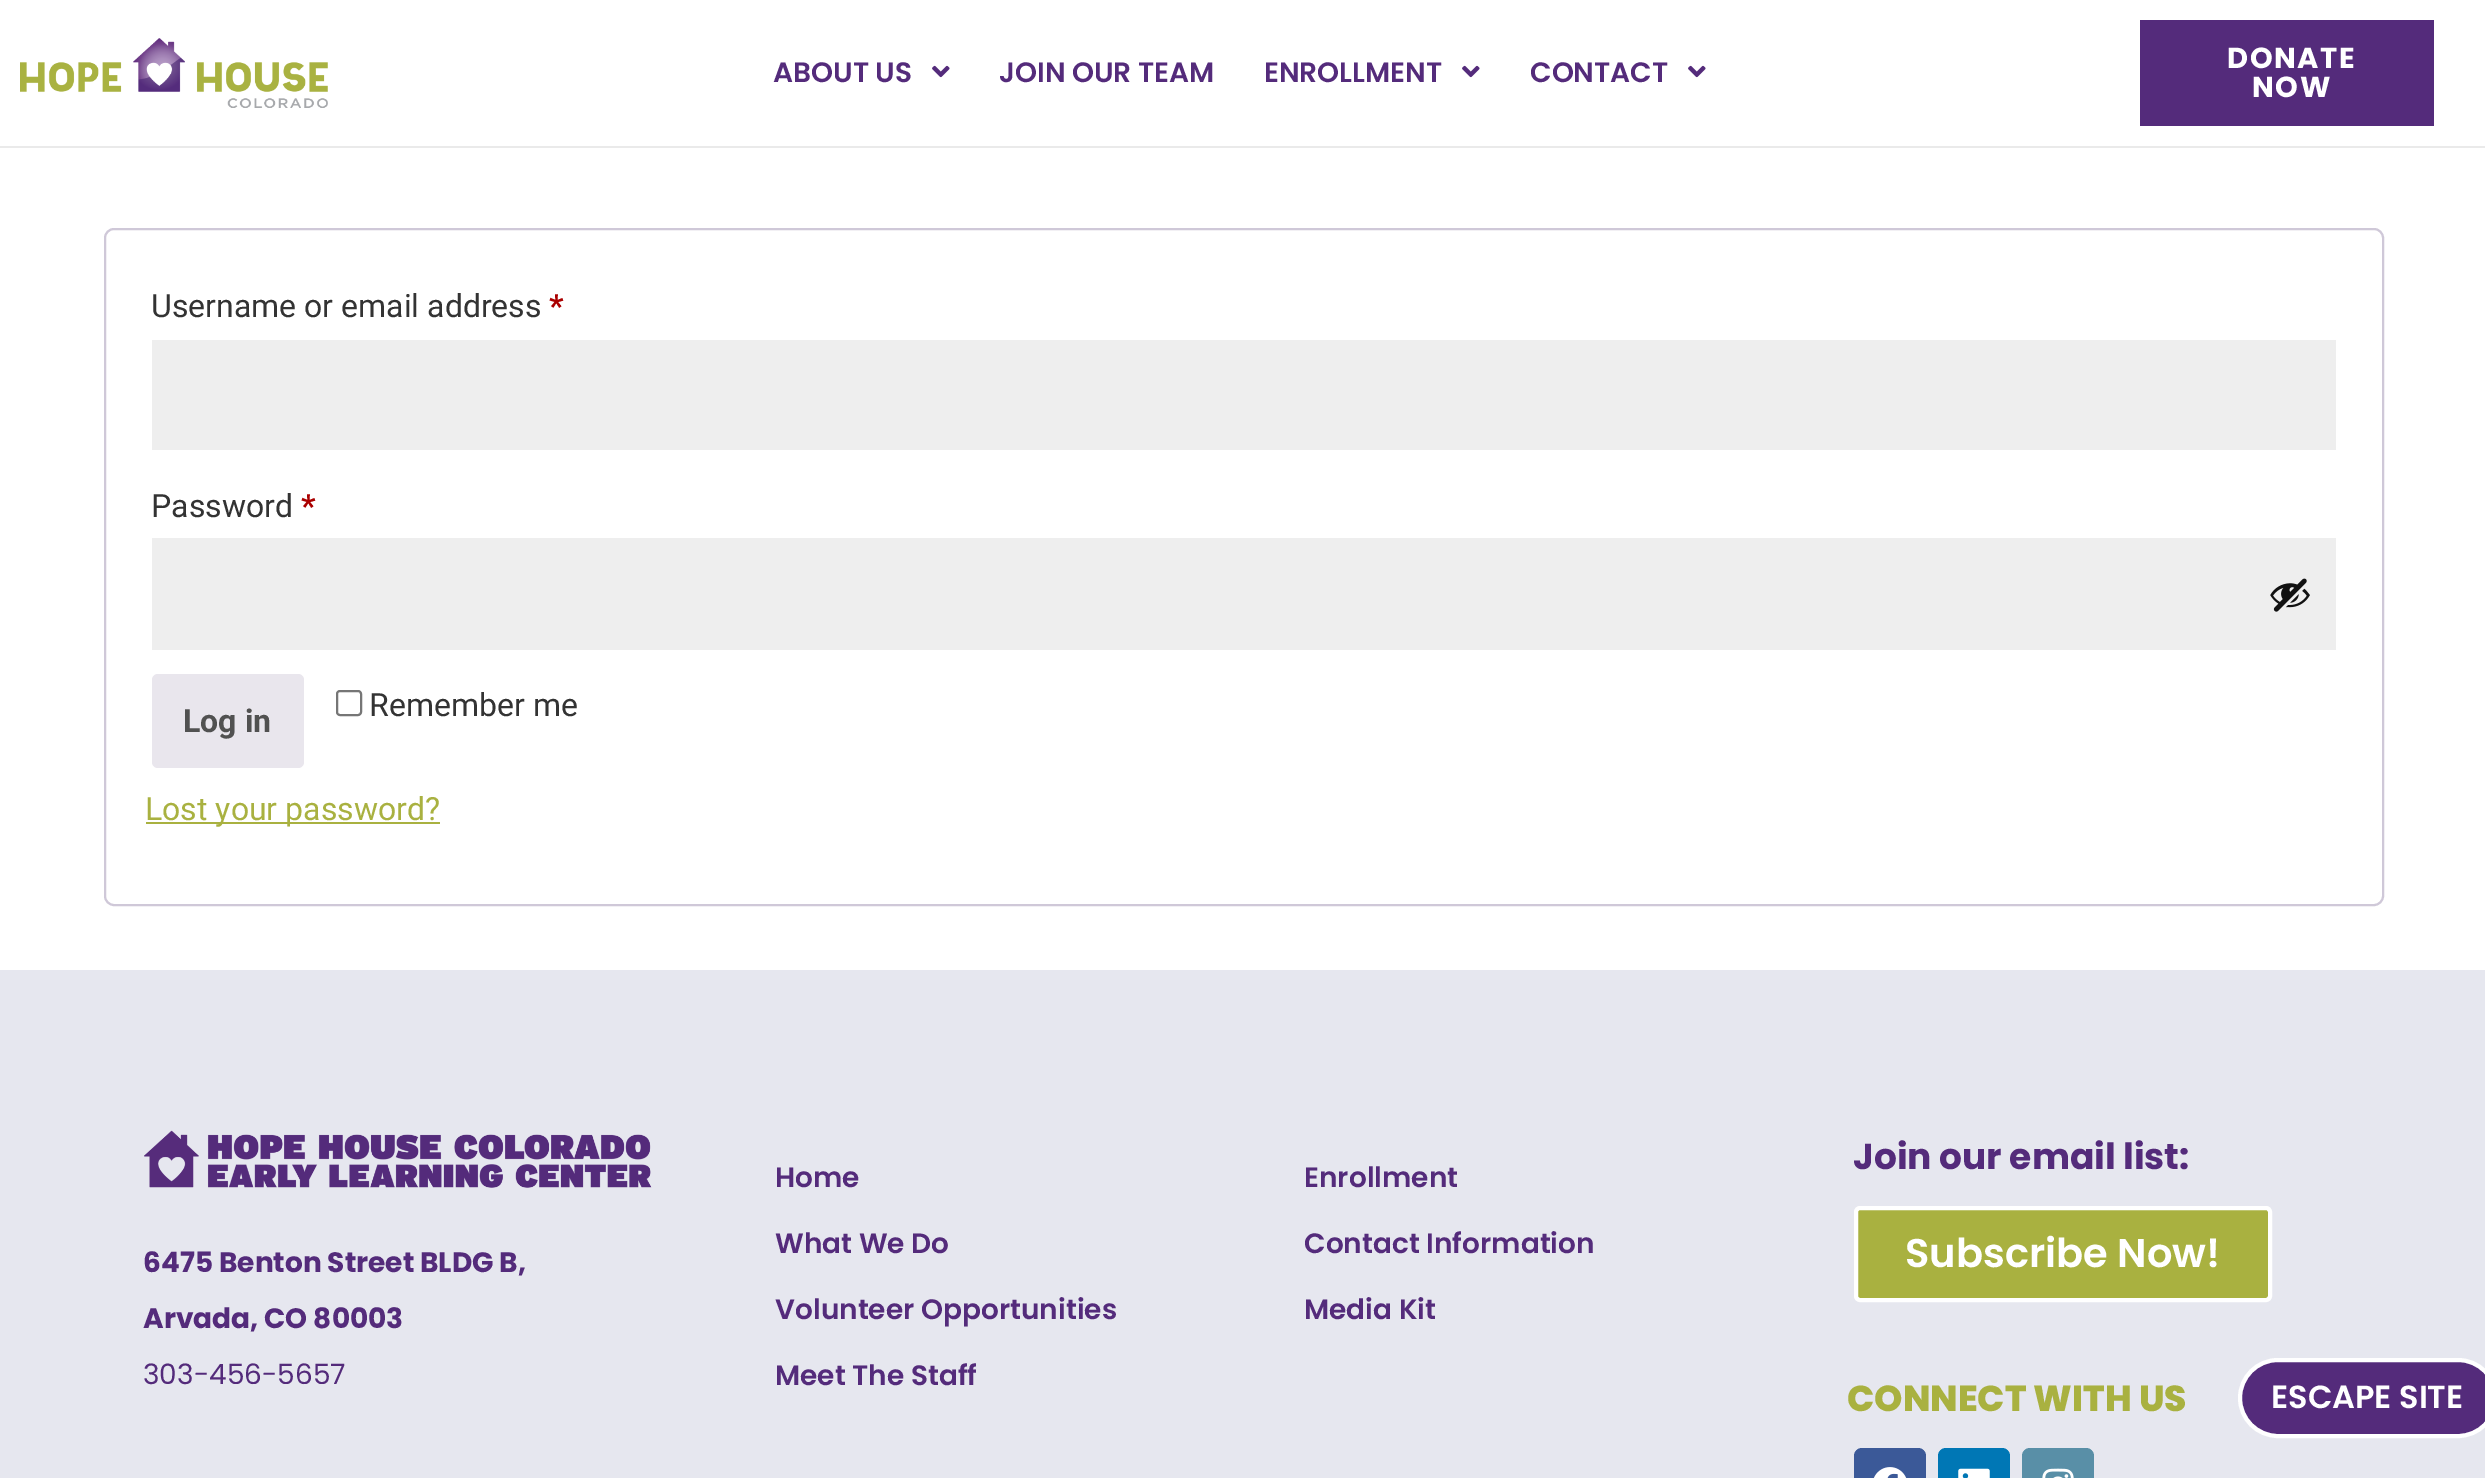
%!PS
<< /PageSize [2485 1478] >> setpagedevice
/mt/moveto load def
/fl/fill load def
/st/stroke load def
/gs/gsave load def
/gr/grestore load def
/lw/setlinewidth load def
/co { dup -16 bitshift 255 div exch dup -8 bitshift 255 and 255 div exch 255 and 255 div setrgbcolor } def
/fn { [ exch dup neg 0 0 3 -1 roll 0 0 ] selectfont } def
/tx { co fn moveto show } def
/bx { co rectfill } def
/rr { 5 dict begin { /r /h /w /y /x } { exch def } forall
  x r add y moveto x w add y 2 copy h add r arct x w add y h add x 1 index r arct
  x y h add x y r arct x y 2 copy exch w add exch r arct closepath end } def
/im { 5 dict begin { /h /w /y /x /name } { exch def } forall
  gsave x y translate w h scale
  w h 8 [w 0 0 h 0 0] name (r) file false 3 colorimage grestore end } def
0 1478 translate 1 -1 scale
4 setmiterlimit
0 0 2485 1478 16#FFFFFF bx
0 146 2485 2 16#EAEAEA bx
(media/1.raw) 20 38 308 70 im
(media/2.raw) 932 65 18 13 im
(media/2.raw) 1462 65 18 13 im
(media/2.raw) 1688 65 18 13 im
2140 20 294 106 16#542B7B bx
16#CFC8D8 co
2 lw
105 229 2278 676 9 rr st
152 340 2184 110 16#EEEEEE bx
152 538 2184 112 16#EEEEEE bx
(media/3.raw) 2270 578 40 34 im
16#767676 co
337 691 24 24 3 rr st
16#E9E6ED co
152 674 152 94 6 rr fl
146 822 294 2 16#A9B140 bx
0 970 2485 508 16#E6E7EF bx
(media/4.raw) 144 1130 508 58 im
16#A9B140 co
1856 1208 414 92 4 rr gs fl gr
16#FFFFFF co
4 lw
st
16#542B7B co
2240 1360 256 76 38 rr gs fl gr
16#FFFFFF co
st
16#3B5998 co
1854 1448 72 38 8 rr fl
(media/5.raw) 1873 1467 34 11 im
16#0077B5 co
1938 1448 72 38 8 rr fl
(media/6.raw) 1958 1468 32 10 im
16#598FA7 co
2022 1448 72 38 8 rr fl
(media/7.raw) 2042 1468 32 10 im
(ABOUT US) 773 82 /Poppins-SemiBold 28 16#542B7B tx
(JOIN OUR TEAM) 999 82 /Poppins-SemiBold 28 16#542B7B tx
(ENROLLMENT) 1264 82 /Poppins-SemiBold 28 16#542B7B tx
(CONTACT) 1530 82 /Poppins-SemiBold 28 16#542B7B tx
/Poppins-Bold 29 fn
16#FFFFFF co
2227 68 mt 1.5 0 (DONATE) ashow
2252 97 mt 1.5 0 (NOW) ashow
(Username or email address) 151 317 /Roboto-Regular 32 16#333333 tx
(*) 549 317 /Roboto-Bold 32 16#AA0000 tx
(Password) 151 517 /Roboto-Regular 32 16#333333 tx
(*) 301 517 /Roboto-Bold 32 16#AA0000 tx
(Remember me) 369 716 /Roboto-Regular 32 16#333333 tx
(Log in) 183 732 /Roboto-Bold 32 16#515151 tx
(Lost your password?) 145 820 /Roboto-Regular 32 16#A9B140 tx
(6475 Benton Street BLDG B,) 143 1272 /Poppins-Bold 28 16#542B7B tx
(Arvada, CO 80003) 143 1328 /Poppins-Bold 28 16#542B7B tx
(303-456-5657) 143 1384 /Poppins-Regular 28 16#542B7B tx
(Home) 775 1187 /Poppins-SemiBold 28 16#542B7B tx
(What We Do) 775 1253 /Poppins-SemiBold 28 16#542B7B tx
(Volunteer Opportunities) 775 1319 /Poppins-SemiBold 28 16#542B7B tx
(Meet The Staff) 775 1385 /Poppins-SemiBold 28 16#542B7B tx
(Enrollment) 1304 1187 /Poppins-SemiBold 28 16#542B7B tx
(Contact Information) 1304 1253 /Poppins-SemiBold 28 16#542B7B tx
(Media Kit) 1304 1319 /Poppins-SemiBold 28 16#542B7B tx
(Join our email list:) 1853 1169 /Poppins-Bold 36 16#542B7B tx
(Subscribe Now!) 1905 1267 /Poppins-SemiBold 40 16#FFFFFF tx
(CONNECT WITH US) 1847 1411 /Poppins-ExtraBold 36 16#A9B140 tx
(ESCAPE SITE) 2271 1408 /Poppins-SemiBold 32 16#FFFFFF tx
showpage
